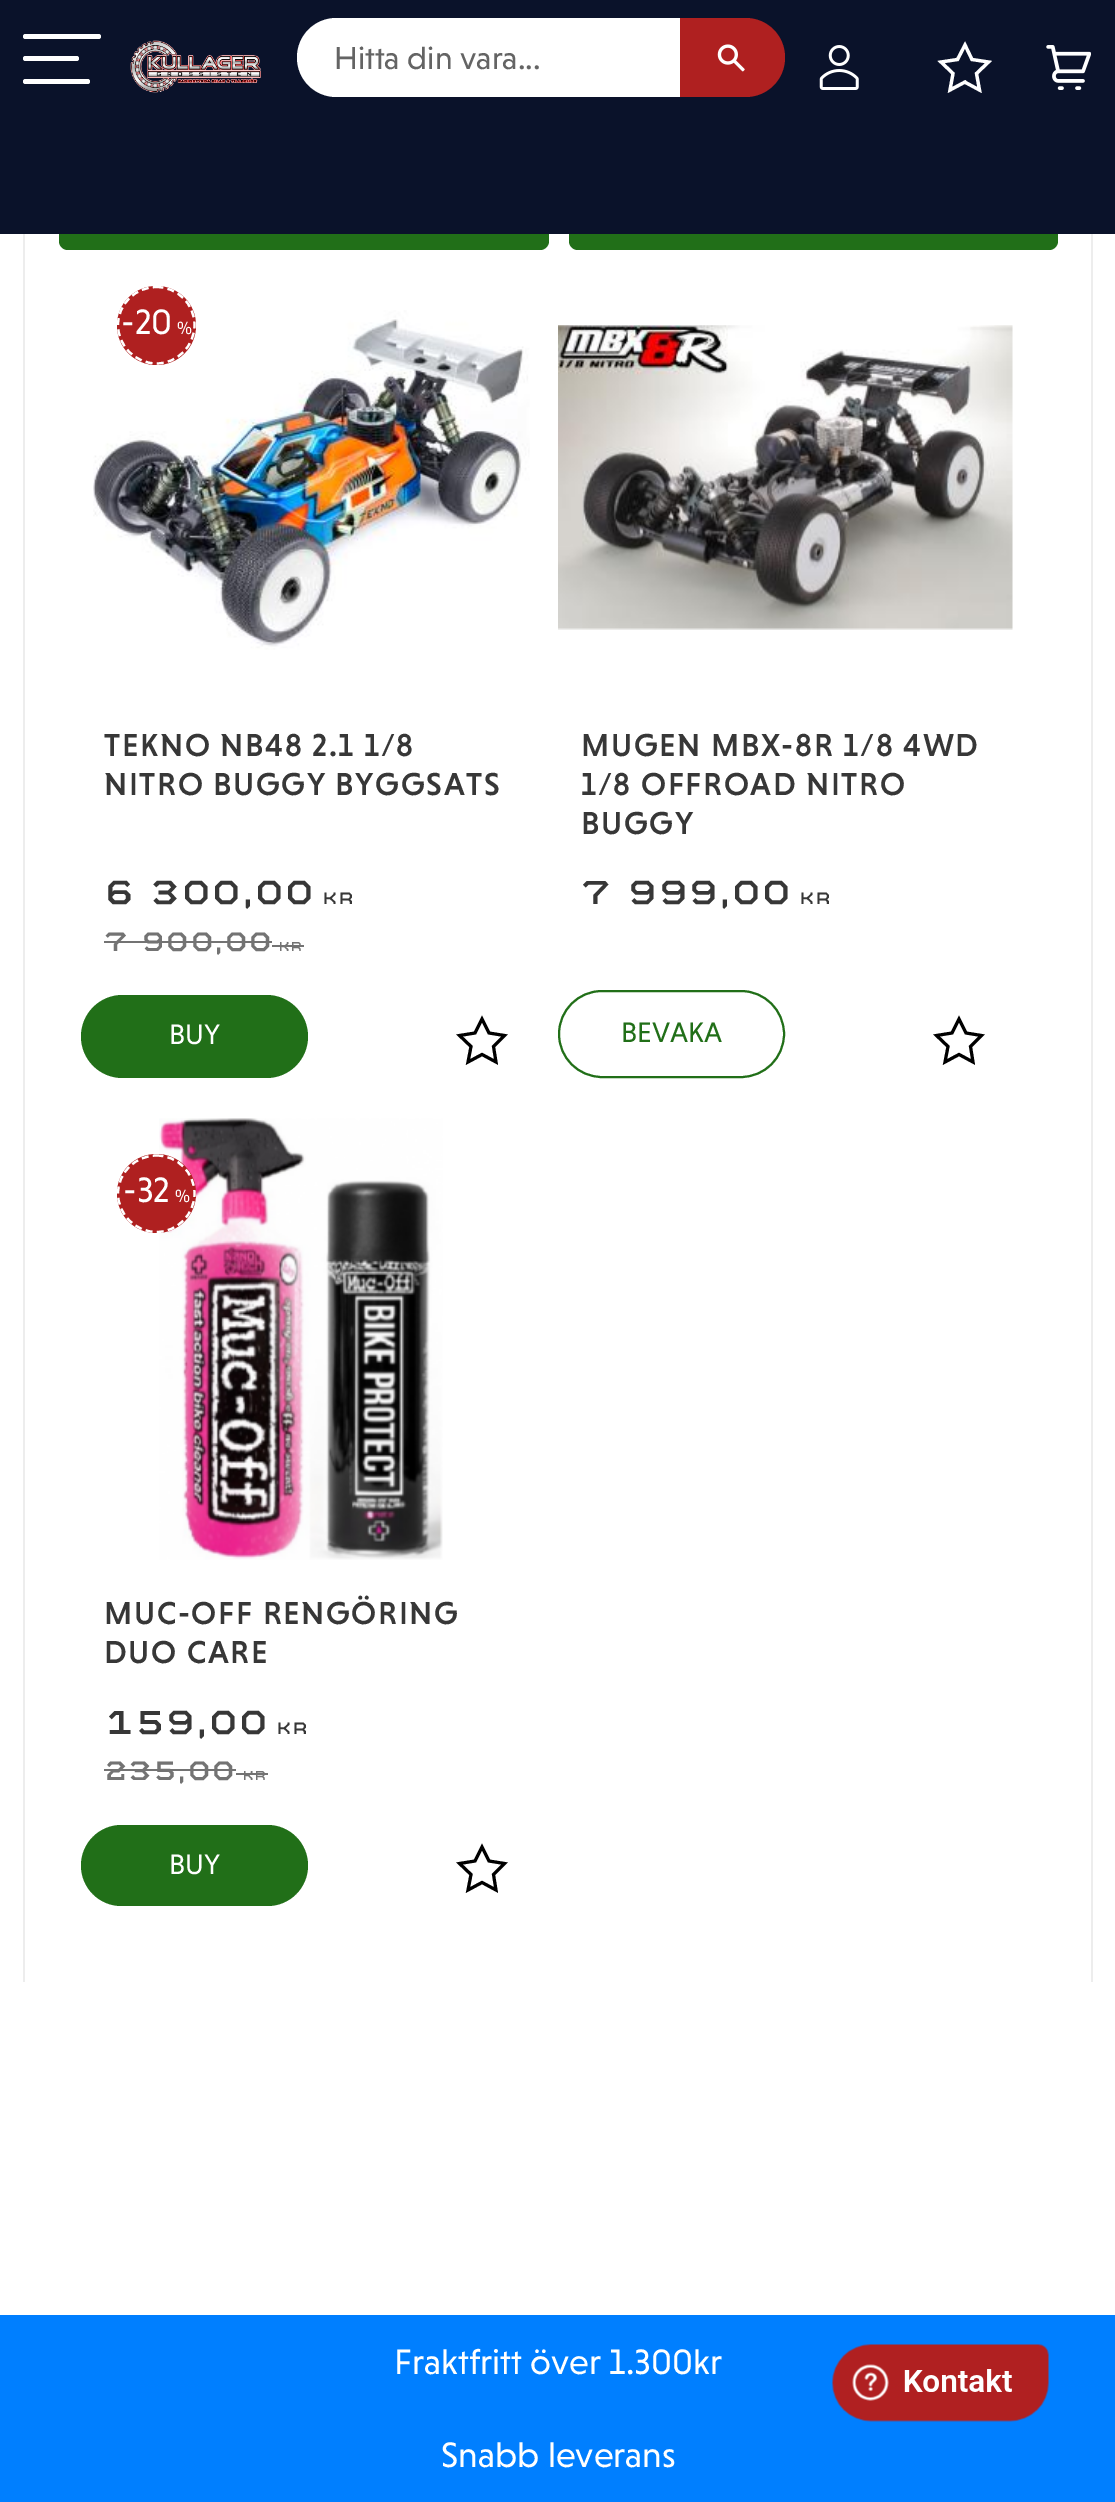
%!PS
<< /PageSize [1115 2502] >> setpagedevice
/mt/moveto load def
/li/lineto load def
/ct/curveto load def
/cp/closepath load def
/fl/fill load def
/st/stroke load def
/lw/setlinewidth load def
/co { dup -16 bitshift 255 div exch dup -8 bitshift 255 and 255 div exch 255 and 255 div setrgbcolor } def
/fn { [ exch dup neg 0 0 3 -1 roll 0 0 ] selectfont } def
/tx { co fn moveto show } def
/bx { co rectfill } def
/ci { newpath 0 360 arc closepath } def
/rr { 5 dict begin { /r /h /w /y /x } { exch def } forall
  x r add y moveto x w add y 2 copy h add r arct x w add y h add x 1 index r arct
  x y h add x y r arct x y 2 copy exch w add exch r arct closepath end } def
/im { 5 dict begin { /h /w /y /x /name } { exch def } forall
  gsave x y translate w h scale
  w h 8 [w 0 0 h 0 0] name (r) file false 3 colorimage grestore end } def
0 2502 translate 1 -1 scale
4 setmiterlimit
0 0 1115 2502 16#FFFFFF bx
16#216F18 co
59 137 490 113 9 rr fl
569 137 489 113 9 rr fl
0 0 1115 234 16#0A122A bx
16#FFFFFF co
23 56 56 5 2.5 rr fl
23 34 78 5 2.5 rr fl
23 79 67 5 2.5 rr fl
(media/1.raw) 130 40 131 53 im
336.5 18 mt 680 18 li 680 97 li 336.5 97 li 314.5 97 297 79.5 297 57.5 ct 297 35.5 314.5 18 336.5 18 ct cp fl
16#AF2020 co
680 18 mt 745.5 18 li 767.5 18 785 35.5 785 57.5 ct 785 79.5 767.5 97 745.5 97 ct 680 97 li cp fl
(media/2.raw) 717 44 28 28 im
(media/3.raw) 819 45 40 45 im
16#FFFFFF co
3.2 lw
965.5 82.5 mt 965 82 li 950 90 li 953 73.5 li 941 62 li 957.5 59.5 li 965 45 li 972 59.5 li 988.5 62 li 976.5 73.5 li 979.5 90 li cp st
(media/4.raw) 1046 45 45 45 im
23 234 2 1748 16#EDEDED bx
(media/5.raw) 93 310 437 340 im
16#AF2020 co
156.5 325.5 39.5 ci fl
16#FFFFFF co
2.2 lw
[6.75 4.5] 0 setdash
156.5 287 mt 177.5 287 194.5 304 194.5 325 ct 194.5 346 177.5 363.5 156.5 363.5 ct 135.5 363.5 118 346 118 325 ct 118 304 135.5 287 156.5 287 ct cp st
104 941 168 2 16#737373 bx
272 945 32 2 16#737373 bx
16#216F18 co
81 995 227 83 41.5 rr fl
16#000000 co
3 lw
[] 0 setdash
483 1055 mt 482 1054.5 li 468 1062 li 471 1046.5 li 459.5 1035.5 li 475 1033 li 482 1019 li 489 1033 li 504.5 1035.5 li 493.5 1046.5 li 496 1062 li cp st
(media/6.raw) 558 325 455 305 im
16#216F18 co
2 lw
559 991 225 86 43 rr st
16#000000 co
3 lw
960 1055 mt 959 1054.5 li 945 1062 li 948 1046.5 li 936.5 1035.5 li 952 1033 li 959 1019 li 966 1033 li 981.5 1035.5 li 970.5 1046.5 li 973 1062 li cp st
(media/7.raw) 159 1118 284 442 im
16#AF2020 co
156.5 1193.5 39.5 ci fl
16#FFFFFF co
2.2 lw
[6.75 4.5] 0 setdash
156.5 1155.5 mt 177.5 1155.5 194.5 1172.5 194.5 1193.5 ct 194.5 1214.5 177.5 1232 156.5 1232 ct 135.5 1232 118 1214.5 118 1193.5 ct 118 1172.5 135.5 1155.5 156.5 1155.5 ct cp st
104 1769 132 2 16#737373 bx
236 1773 32 2 16#737373 bx
16#216F18 co
81 1825 227 81 40.5 rr fl
16#000000 co
3 lw
[] 0 setdash
483 1883 mt 482 1882.5 li 468 1890 li 471 1874.5 li 459.5 1863.5 li 475 1861 li 482 1847 li 489 1861 li 504.5 1863.5 li 493.5 1874.5 li 496 1890 li cp st
1091 234 2 1748 16#EDEDED bx
0 2315 1115 187 16#007FFF bx
(media/8.raw) 832 2344 217 78 im
(Hitta din vara...) 334 69 /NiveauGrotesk-Regular 32.4 16#646464 tx
(-20) 121 334 /NiveauGrotesk-Regular 36 16#FFFFFF tx
(%) 177 334 /NiveauGrotesk-Regular 18 16#FFFFFF tx
/NiveauGrotesk-Medium 32.4 fn
16#373737 co
104 756 mt 1.6 0 (TEKNO NB48 2.1 1/8) ashow
104 795 mt 1.6 0 (NITRO BUGGY BYGGSATS) ashow
(6 300,00) 104 904 /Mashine-Regular 36 16#373737 tx
(KR) 322 904 /Mashine-Regular 18 16#373737 tx
(7 900,00) 104 951 /Mashine-Regular 28.75 16#737373 tx
(KR) 278 951 /Mashine-Regular 14 16#737373 tx
(BUY) 169 1044 /NiveauGrotesk-Regular 28.75 16#FFFFFF tx
/NiveauGrotesk-Medium 32.4 fn
16#373737 co
581 756 mt 1.6 0 (MUGEN MBX-8R 1/8 4WD) ashow
581 795 mt 1.6 0 (1/8 OFFROAD NITRO) ashow
581 834 mt 1.6 0 (BUGGY) ashow
(7 999,00) 581 904 /Mashine-Regular 36 16#373737 tx
(KR) 799 904 /Mashine-Regular 18 16#373737 tx
(BEVAKA) 621 1042 /NiveauGrotesk-Regular 28.75 16#216F18 tx
(-32) 123 1202 /NiveauGrotesk-Regular 36 16#FFFFFF tx
(%) 175 1202 /NiveauGrotesk-Regular 18 16#FFFFFF tx
/NiveauGrotesk-Medium 32.4 fn
16#373737 co
104 1624 mt 1.6 0 (MUC-OFF RENGÖRING) ashow
104 1663 mt 1.6 0 (DUO CARE) ashow
(159,00) 104 1734 /Mashine-Regular 36 16#373737 tx
(KR) 276 1734 /Mashine-Regular 18 16#373737 tx
(235,00) 104 1780 /Mashine-Regular 28.75 16#737373 tx
(KR) 242 1780 /Mashine-Regular 14 16#737373 tx
(BUY) 169 1874 /NiveauGrotesk-Regular 28.75 16#FFFFFF tx
(Fraktfritt över 1.300kr) 394 2374 /NiveauGrotesk-Regular 36 16#FFFFFF tx
(Snabb leverans) 441 2467 /NiveauGrotesk-Regular 36 16#FFFFFF tx
showpage
